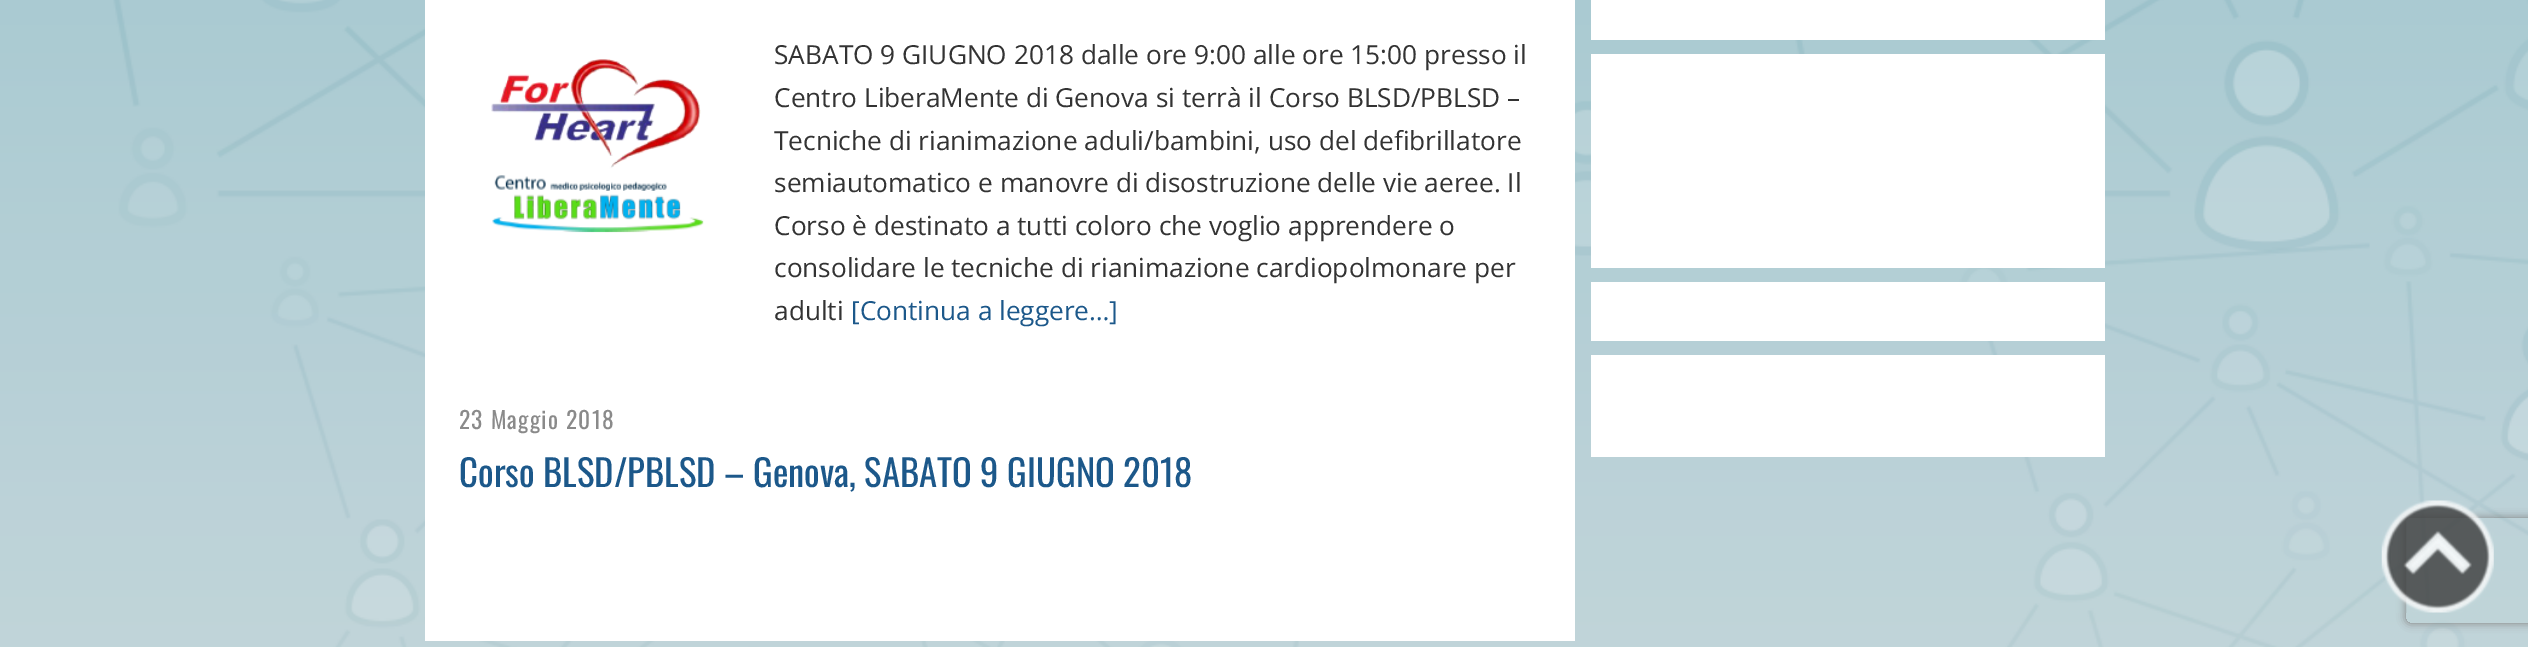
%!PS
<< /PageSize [2528 647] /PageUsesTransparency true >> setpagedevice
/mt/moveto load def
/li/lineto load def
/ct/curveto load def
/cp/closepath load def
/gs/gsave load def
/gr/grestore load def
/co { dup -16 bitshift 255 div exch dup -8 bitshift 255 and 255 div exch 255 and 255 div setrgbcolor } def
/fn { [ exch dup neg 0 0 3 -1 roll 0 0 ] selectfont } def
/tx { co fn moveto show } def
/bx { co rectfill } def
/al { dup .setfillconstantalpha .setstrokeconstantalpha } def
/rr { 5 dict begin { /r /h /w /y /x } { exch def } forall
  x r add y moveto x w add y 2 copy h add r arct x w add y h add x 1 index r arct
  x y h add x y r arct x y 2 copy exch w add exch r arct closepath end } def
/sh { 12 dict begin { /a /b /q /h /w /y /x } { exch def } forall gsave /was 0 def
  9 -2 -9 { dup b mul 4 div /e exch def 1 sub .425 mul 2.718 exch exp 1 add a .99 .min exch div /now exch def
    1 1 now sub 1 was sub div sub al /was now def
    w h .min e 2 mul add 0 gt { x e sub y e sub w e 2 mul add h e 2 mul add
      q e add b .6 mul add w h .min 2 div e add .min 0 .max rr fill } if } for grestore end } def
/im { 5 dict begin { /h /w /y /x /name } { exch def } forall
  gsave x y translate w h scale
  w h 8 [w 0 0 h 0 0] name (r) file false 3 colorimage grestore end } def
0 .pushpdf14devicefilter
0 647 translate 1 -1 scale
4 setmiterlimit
0 0 2528 647 16#FFFFFF bx
(media/1.raw) 0 0 2528 647 im
425 0 1150 641 16#FFFFFF bx
(media/2.raw) 491 59 213 174 im
1591 0 514 40 16#FFFFFF bx
1591 54 514 214 16#FFFFFF bx
1591 282 514 59 16#FFFFFF bx
1591 355 514 102 16#FFFFFF bx
gs
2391 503 mt 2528 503 li 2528 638 li 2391 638 li cp 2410 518 mt 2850 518 li 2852 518 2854 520 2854 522 ct 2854 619 li 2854 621 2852 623 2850 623 ct 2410 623 li 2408 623 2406 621 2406 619 ct 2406 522 li 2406 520 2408 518 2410 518 ct cp eoclip newpath
16#808080 co
2406 518 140 105 4 4.5 1 sh
gr
(media/3.raw) 2381 500 113 113 im
(SABATO 9 GIUGNO 2018 dalle ore 9:00 alle ore 15:00 presso il) 774 64 /OpenSans-Regular 26.25 16#333333 tx
(Centro LiberaMente di Genova si terrà il Corso BLSD/PBLSD –) 774 107 /OpenSans-Regular 26.25 16#333333 tx
(Tecniche di rianimazione aduli/bambini, uso del defibrillatore) 774 150 /OpenSans-Regular 26.25 16#333333 tx
(semiautomatico e manovre di disostruzione delle vie aeree. Il) 774 192 /OpenSans-Regular 26.25 16#333333 tx
(Corso è destinato a tutti coloro che voglio apprendere o) 774 235 /OpenSans-Regular 26.25 16#333333 tx
(consolidare le tecniche di rianimazione cardiopolmonare per) 774 277 /OpenSans-Regular 26.25 16#333333 tx
(adulti) 774 320 /OpenSans-Regular 26.25 16#333333 tx
([Continua a leggere…]) 851 320 /OpenSans-Regular 26.25 16#1C588A tx
/Oswald-Regular 23.5 fn
16#8A8A8A co
459 429 mt 1.25 0 (23 Maggio 2018) ashow
(Corso BLSD/PBLSD – Genova, SABATO 9 GIUGNO 2018) 459 487 /Oswald-Regular 36.75 16#1C588A tx
.poppdf14devicefilter showpage
